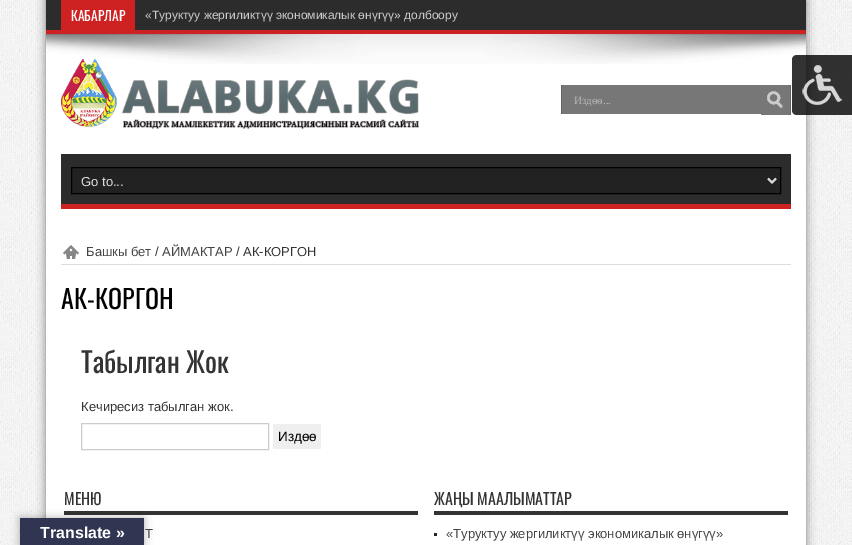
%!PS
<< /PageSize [852 545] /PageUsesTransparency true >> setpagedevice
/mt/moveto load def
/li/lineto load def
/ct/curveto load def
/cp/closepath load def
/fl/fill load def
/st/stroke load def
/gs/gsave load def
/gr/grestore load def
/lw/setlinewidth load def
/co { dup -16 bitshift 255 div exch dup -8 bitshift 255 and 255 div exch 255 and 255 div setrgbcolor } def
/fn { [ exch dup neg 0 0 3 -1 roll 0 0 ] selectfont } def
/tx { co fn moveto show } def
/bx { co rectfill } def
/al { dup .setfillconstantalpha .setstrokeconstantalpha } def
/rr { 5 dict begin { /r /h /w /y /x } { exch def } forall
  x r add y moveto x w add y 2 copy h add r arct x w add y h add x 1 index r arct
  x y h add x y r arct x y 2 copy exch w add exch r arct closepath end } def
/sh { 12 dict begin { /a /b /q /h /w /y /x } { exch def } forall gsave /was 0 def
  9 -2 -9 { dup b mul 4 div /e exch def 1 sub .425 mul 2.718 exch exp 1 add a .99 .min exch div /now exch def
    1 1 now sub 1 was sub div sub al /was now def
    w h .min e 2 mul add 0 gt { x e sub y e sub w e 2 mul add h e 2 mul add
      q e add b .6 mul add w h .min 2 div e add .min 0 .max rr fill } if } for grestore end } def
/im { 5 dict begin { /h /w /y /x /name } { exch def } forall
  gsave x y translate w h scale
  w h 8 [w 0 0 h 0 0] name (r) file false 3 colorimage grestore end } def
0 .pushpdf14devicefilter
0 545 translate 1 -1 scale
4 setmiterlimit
0 0 852 545 16#FFFFFF bx
(media/1.raw) 0 0 852 545 im
16#000000 co
46 0 760 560 0 5 .5 sh
46 34 760 511 16#FFFFFF bx
46 0 760 30 16#2C2C2C bx
46 30 760 4 16#CD2122 bx
61 0 74 30 16#CD2122 bx
562 85 199 29 16#777777 bx
561 85 1 29 16#646464 bx
761 85 29 30 16#777777 bx
(media/2.raw) 767 91 17 18 im
790 85 1 30 16#646464 bx
(media/3.raw) 46 34 760 30 im
(media/4.raw) 61 59 358 70 im
61 154 730 50 16#2C2C2C bx
61 204 730 5 16#CD2122 bx
16#222222 co
71.5 167.5 mt 780.5 167.5 li 780.5 193.5 li 71.5 193.5 li cp gs fl gr
16#000000 co
st
16#DDDDDD co
2 lw
768 178.5 mt 772 182.5 li 776 178.5 li st
61 264 730 1 16#DDDDDD bx
(media/5.raw) 63 245 16 14 im
16#CCCCCC co
1 lw
81.5 423.5 187 26 rectstroke
273 424 48 25 16#EFEFEF bx
64 511 354 4 16#333333 bx
434 511 354 4 16#333333 bx
434 533 3 3 16#1F262D bx
0.8 al
16#000000 co
797 55 mt 852 55 li 852 115 li 797 115 li 794 115 792 113 792 110 ct 792 60 li 792 57 794 55 797 55 ct cp fl
1 al
(media/6.raw) 802 65 40 40 im
20 518 124 27 0 4.5 .3 sh
20 518 124 27 16#303551 bx
(КАБАРЛАР) 71 21 /Oswald-Regular 13.5 16#FFFFFF tx
(«Туруктуу жергиликтүү экономикалык өнүгүү» долбоору) 145 19 /LiberationSans-Regular 12 16#CCCCCC tx
(Издөө...) 574 104 /LiberationSerif-Regular 11 16#B8B8B8 tx
(Go to...) 81 186 /LiberationSans-Regular 13 16#DDDDDD tx
(Башкы бет) 86 256 /LiberationSans-Regular 13 16#444444 tx
(/) 155 256 /LiberationSans-Regular 13 16#333333 tx
(АЙМАКТАР) 162 256 /LiberationSans-Regular 13 16#444444 tx
(/ АК-КОРГОН) 236 256 /LiberationSans-Regular 13 16#333333 tx
(АК-КОРГОН) 61 309 /Oswald-Regular 26 16#000000 tx
(Табылган Жок) 81 373 /Oswald-Regular 28 16#333333 tx
(Кечиресиз табылган жок.) 81 411 /LiberationSans-Regular 13 16#333333 tx
(Издөө) 278 441 /LiberationSans-Regular 13.5 16#000000 tx
(МЕНЮ) 64 505 /Oswald-Regular 16 16#333333 tx
(Т) 145 538 /LiberationSans-Regular 13 16#444444 tx
(ЖАҢЫ МААЛЫМАТТАР) 434 505 /Oswald-Regular 16 16#333333 tx
(«Туруктуу жергиликтүү экономикалык өнүгүү») 446 538 /LiberationSans-Regular 13 16#444444 tx
(Translate ») 40 538 /LiberationSans-Bold 16 16#FFFFFF tx
.poppdf14devicefilter showpage
